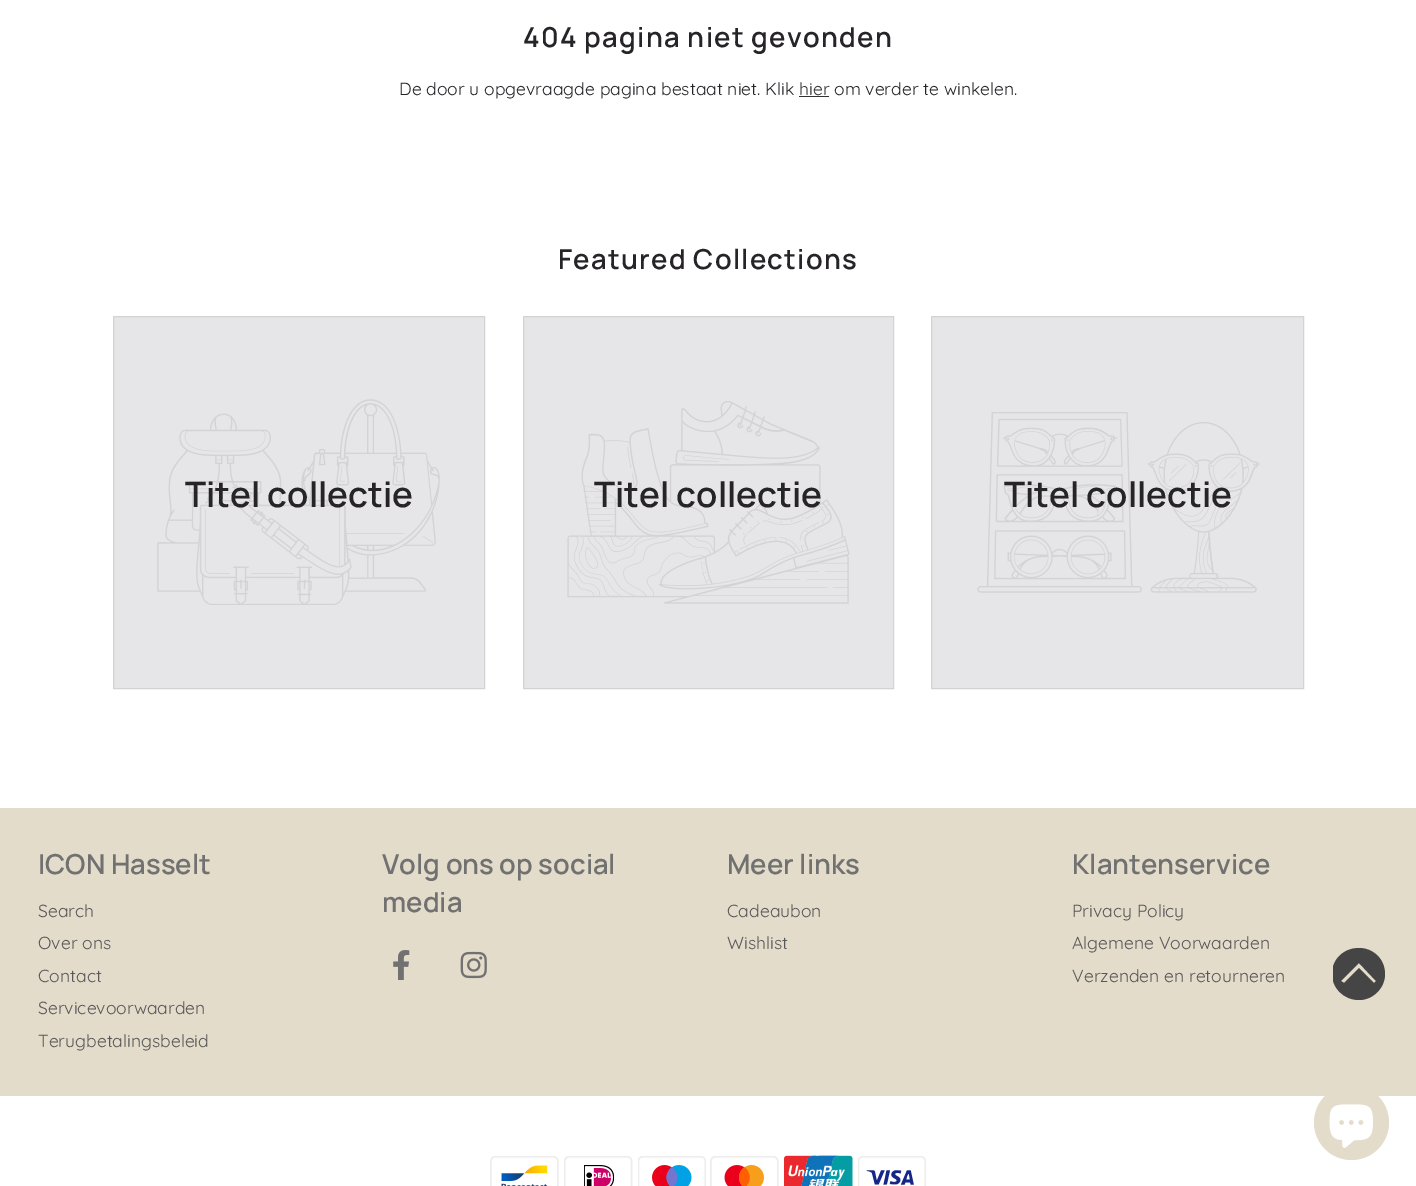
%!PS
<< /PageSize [1416 1186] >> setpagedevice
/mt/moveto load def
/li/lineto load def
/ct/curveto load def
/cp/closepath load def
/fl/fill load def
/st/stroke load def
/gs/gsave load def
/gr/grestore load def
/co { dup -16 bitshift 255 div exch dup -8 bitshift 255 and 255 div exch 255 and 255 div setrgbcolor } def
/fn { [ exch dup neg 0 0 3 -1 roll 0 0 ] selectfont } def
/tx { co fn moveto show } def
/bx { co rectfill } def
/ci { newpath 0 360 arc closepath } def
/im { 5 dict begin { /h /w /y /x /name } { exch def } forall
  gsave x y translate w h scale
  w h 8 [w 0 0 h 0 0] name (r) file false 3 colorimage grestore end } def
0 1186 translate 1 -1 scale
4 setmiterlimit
0 0 1416 1186 16#FFFFFF bx
799 96 30 1 16#333333 bx
16#E6E5E7 co
113.5 316.5 mt 484.5 316.5 li 484.5 688.5 li 113.5 688.5 li cp gs fl gr
16#D4D3D4 co
st
(media/1.raw) 157 399 283 206 im
16#E6E5E7 co
523.5 316.5 mt 893.5 316.5 li 893.5 688.5 li 523.5 688.5 li cp gs fl gr
16#D4D3D4 co
st
(media/2.raw) 567 401 283 203 im
16#E6E5E7 co
931.5 316.5 mt 1303.5 316.5 li 1303.5 688.5 li 931.5 688.5 li cp gs fl gr
16#D4D3D4 co
st
(media/3.raw) 977 412 283 181 im
0 808 1416 288 16#E4DCCB bx
(media/4.raw) 393 950 17 30 im
(media/5.raw) 460 951 27 28 im
(media/6.raw) 490 1156 69 30 im
(media/7.raw) 564 1156 69 30 im
(media/8.raw) 638 1156 68 30 im
(media/9.raw) 710 1156 69 30 im
(media/10.raw) 784 1155 69 31 im
(media/11.raw) 858 1156 68 30 im
gs
1333 948 52 52 rectclip
16#454545 co
1359 948 mt 1344 948 1332 959 1332 974 ct 1332 988 1344 1000 1359 1000 ct 1373 1000 1385 988 1385 974 ct 1385 959 1373 948 1359 948 ct cp 1374 983 mt 1359 968 li 1344 983 li 1341 981 li 1359 963 li 1376 981 li cp eofill
gr
1351.5 1122.5 37.5 ci fl
(media/12.raw) 1329 1104 44 44 im
/Manrope-SemiBold 27.5 fn
16#262428 co
523 47 mt 1.25 0 (404 pagina niet gevonden) ashow
(De door u opgevraagde pagina bestaat niet. Klik) 399 95 /Quicksand-Regular 17.5 16#262428 tx
(hier) 799 95 /Quicksand-Regular 17.5 16#333333 tx
(om verder te winkelen.) 834 95 /Quicksand-Regular 17.5 16#262428 tx
/Manrope-SemiBold 27.5 fn
558 269 mt 1.25 0 (Featured Collections) ashow
(Titel collectie) 185 507 /Manrope-SemiBold 35 16#262428 tx
(Titel collectie) 594 507 /Manrope-SemiBold 35 16#262428 tx
(Titel collectie) 1004 507 /Manrope-SemiBold 35 16#262428 tx
(ICON Hasselt) 38 874 /Manrope-SemiBold 27.5 16#717171 tx
(Search) 38 917 /Quicksand-Regular 17.5 16#585858 tx
(Over ons) 38 949 /Quicksand-Regular 17.5 16#585858 tx
(Contact) 38 982 /Quicksand-Regular 17.5 16#585858 tx
(Servicevoorwaarden) 38 1014 /Quicksand-Regular 17.5 16#585858 tx
(Terugbetalingsbeleid) 38 1047 /Quicksand-Regular 17.5 16#585858 tx
(Volg ons op social) 382 874 /Manrope-SemiBold 27.5 16#717171 tx
(media) 382 912 /Manrope-SemiBold 27.5 16#717171 tx
(Meer links) 727 874 /Manrope-SemiBold 27.5 16#717171 tx
(Cadeaubon) 727 917 /Quicksand-Regular 17.5 16#585858 tx
(Wishlist) 727 949 /Quicksand-Regular 17.5 16#585858 tx
(Klantenservice) 1072 874 /Manrope-SemiBold 27.5 16#717171 tx
(Privacy Policy) 1072 917 /Quicksand-Regular 17.5 16#585858 tx
(Algemene Voorwaarden) 1072 949 /Quicksand-Regular 17.5 16#585858 tx
(Verzenden en retourneren) 1072 982 /Quicksand-Regular 17.5 16#585858 tx
showpage
